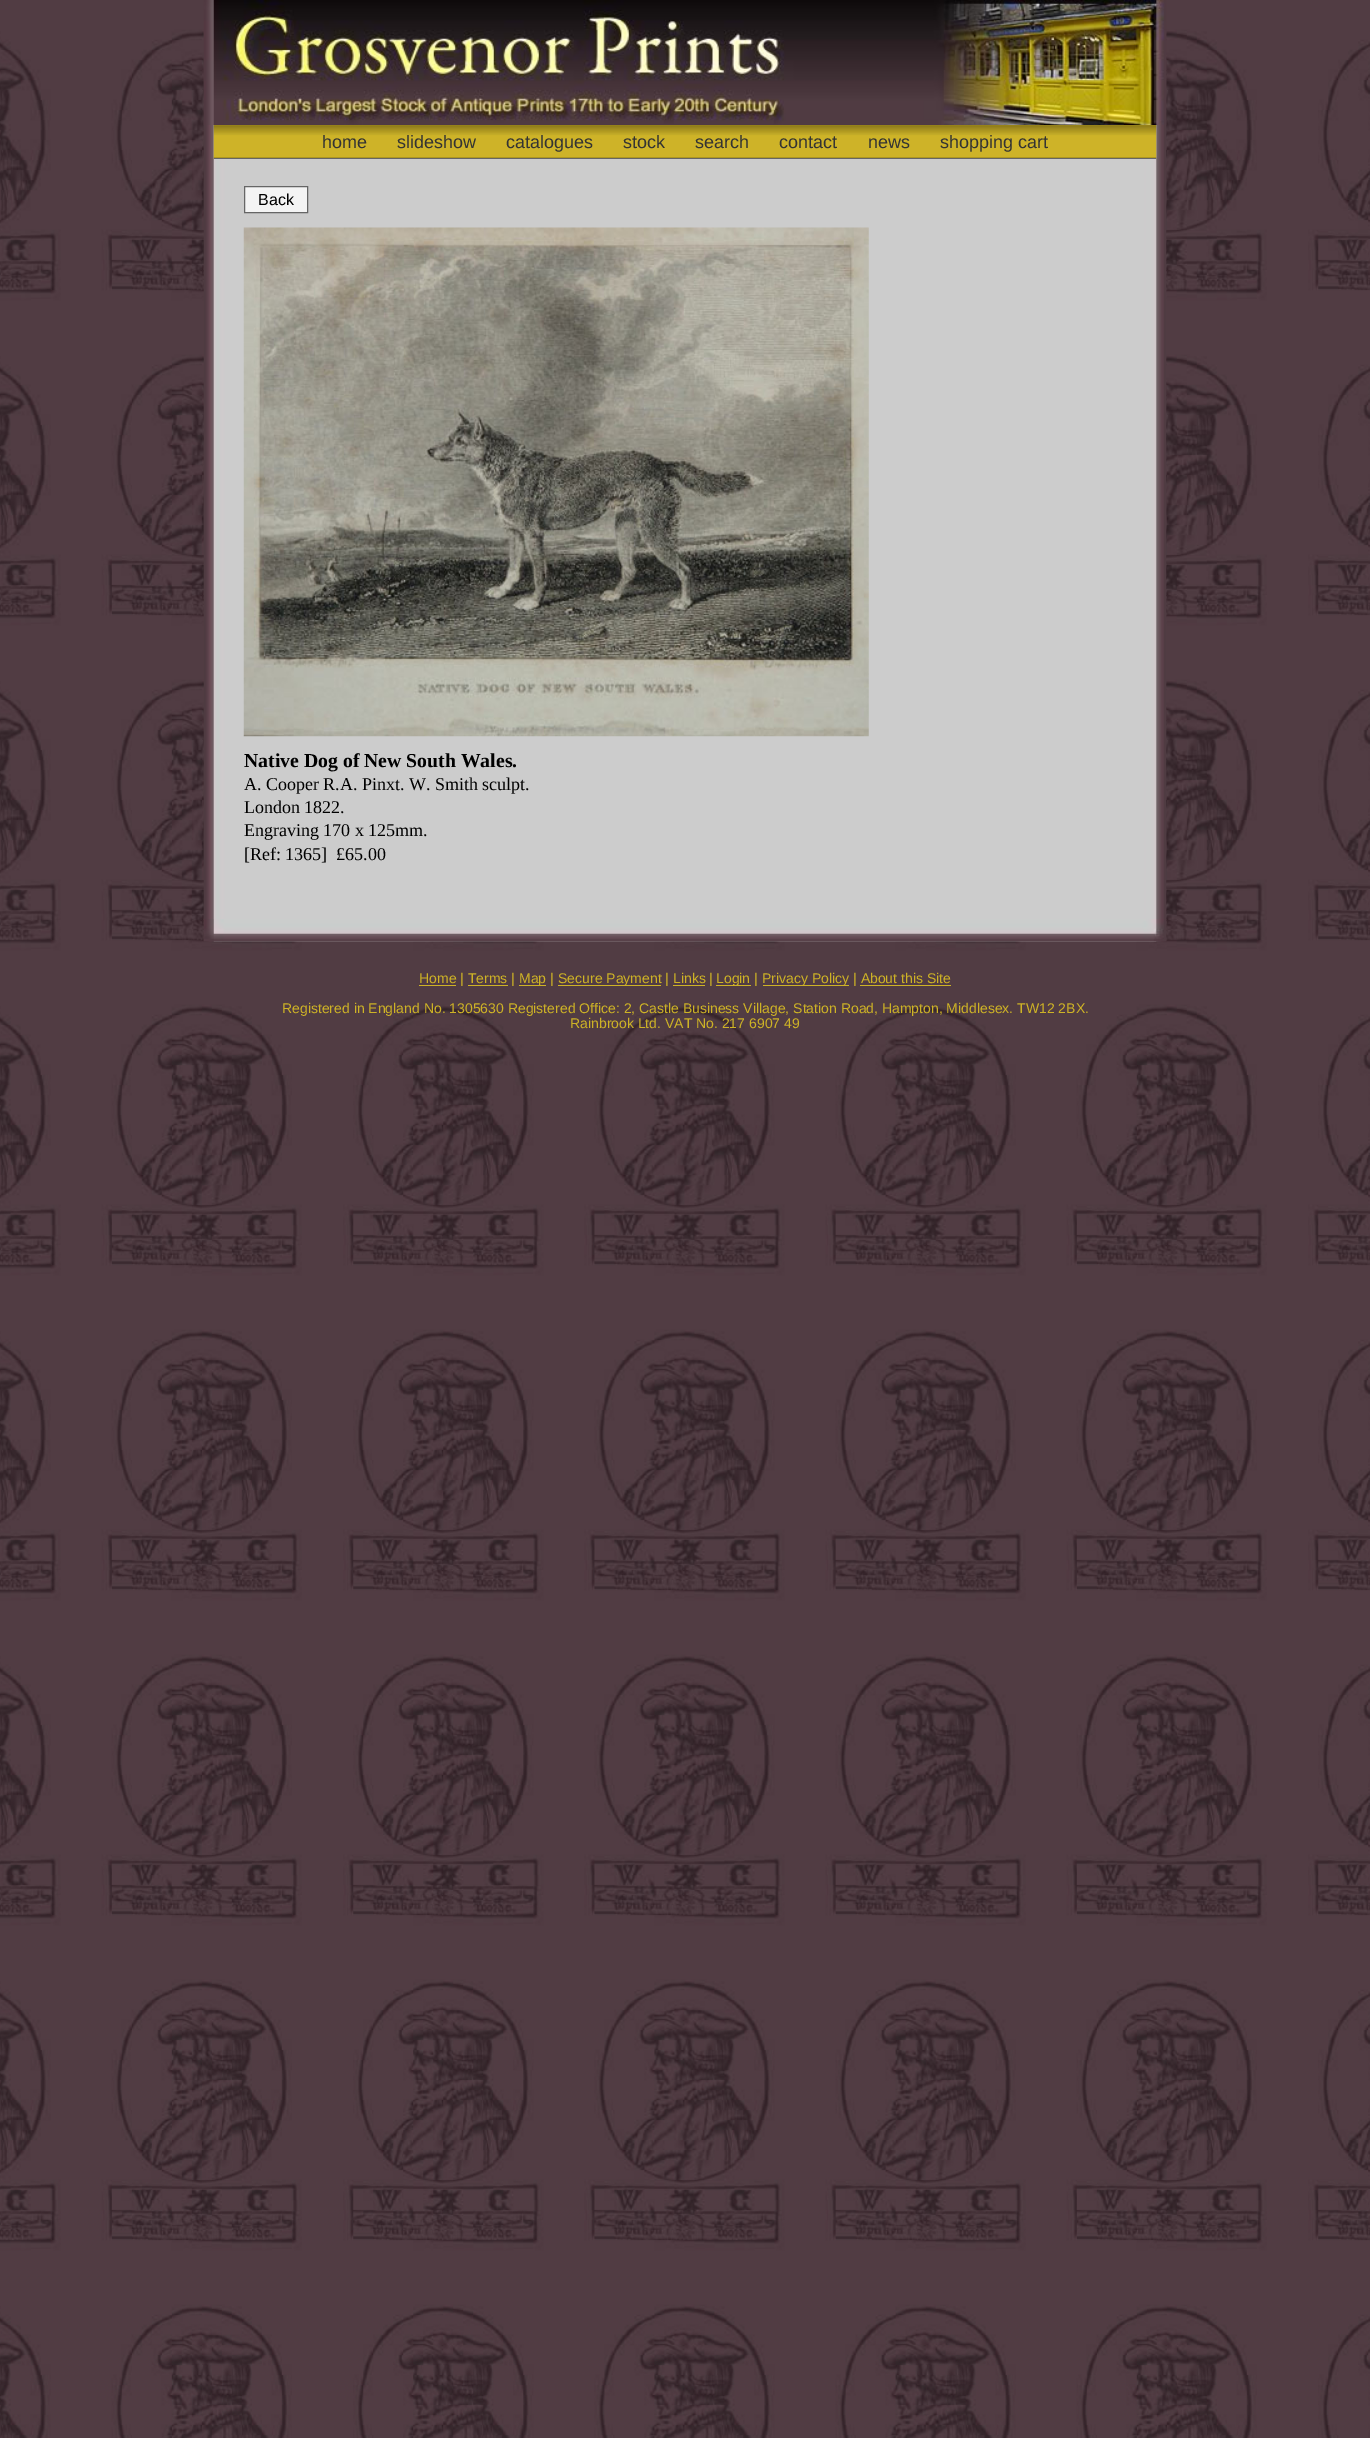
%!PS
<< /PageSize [1370 2438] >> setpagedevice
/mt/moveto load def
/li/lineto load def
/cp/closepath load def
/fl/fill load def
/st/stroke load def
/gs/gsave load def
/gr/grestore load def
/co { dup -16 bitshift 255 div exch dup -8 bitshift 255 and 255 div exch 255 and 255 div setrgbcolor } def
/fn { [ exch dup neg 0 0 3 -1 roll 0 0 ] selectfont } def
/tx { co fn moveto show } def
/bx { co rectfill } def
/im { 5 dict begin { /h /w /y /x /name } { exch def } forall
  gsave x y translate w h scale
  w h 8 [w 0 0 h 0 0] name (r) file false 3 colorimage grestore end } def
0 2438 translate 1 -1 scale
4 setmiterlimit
0 0 1370 2438 16#FFFFFF bx
(media/1.raw) 0 0 1370 2438 im
(media/2.raw) 203 0 964 942 im
(media/3.raw) 203 0 964 125 im
(media/4.raw) 213 125 944 34 im
214 158 942 1 16#666666 bx
16#F4F4F4 co
244.5 186.5 mt 307.5 186.5 li 307.5 212.5 li 244.5 212.5 li cp gs fl gr
16#666666 co
st
(media/5.raw) 243 227 626 510 im
(media/6.raw) 203 919 964 23 im
419 985 37 1 16#CEB326 bx
519 985 27 1 16#CEB326 bx
558 985 103 1 16#CEB326 bx
716 985 35 1 16#CEB326 bx
763 985 86 1 16#CEB326 bx
468 985 40 1 16#CEB326 bx
673 985 32 1 16#CEB326 bx
860 985 91 1 16#CEB326 bx
(home) 322 148 /LiberationSans-Regular 18 16#333333 tx
(slideshow) 397 148 /LiberationSans-Regular 18 16#333333 tx
(catalogues) 506 148 /LiberationSans-Regular 18 16#333333 tx
(stock) 623 148 /LiberationSans-Regular 18 16#333333 tx
(search) 695 148 /LiberationSans-Regular 18 16#333333 tx
(contact) 779 148 /LiberationSans-Regular 18 16#333333 tx
(news) 868 148 /LiberationSans-Regular 18 16#333333 tx
(shopping cart) 940 148 /LiberationSans-Regular 18 16#333333 tx
(Back) 258 205 /LiberationSans-Regular 16 16#000000 tx
(Native Dog of New South Wales.) 244 767 /LiberationSerif-Bold 19.75 16#000000 tx
(A. Cooper R.A. Pinxt. W. Smith sculpt.) 244 790 /LiberationSerif-Regular 18 16#000000 tx
(London 1822.) 244 813 /LiberationSerif-Regular 18 16#000000 tx
(Engraving 170 x 125mm.) 244 836 /LiberationSerif-Regular 18 16#000000 tx
([Ref: 1365]  £65.00) 244 860 /LiberationSerif-Regular 18 16#000000 tx
(Home | Terms |) 419 983 /LiberationSans-Regular 14 16#CEB326 tx
(Map |) 519 983 /LiberationSans-Regular 14 16#CEB326 tx
(Secure Payment | Links |) 558 983 /LiberationSans-Regular 14 16#CEB326 tx
(Login |) 716 983 /LiberationSans-Regular 14 16#CEB326 tx
(Privacy Policy | About this Site) 762 983 /LiberationSans-Regular 14 16#CEB326 tx
(Registered in England No. 1305630 Registered Office: 2, Castle Business Village, Station Road, Hampton, Middlesex. TW12 2BX.) 282 1013 /LiberationSans-Regular 14 16#CEB326 tx
(Rainbrook Ltd. VAT No. 217 6907 49) 570 1028 /LiberationSans-Regular 14 16#CEB326 tx
showpage
